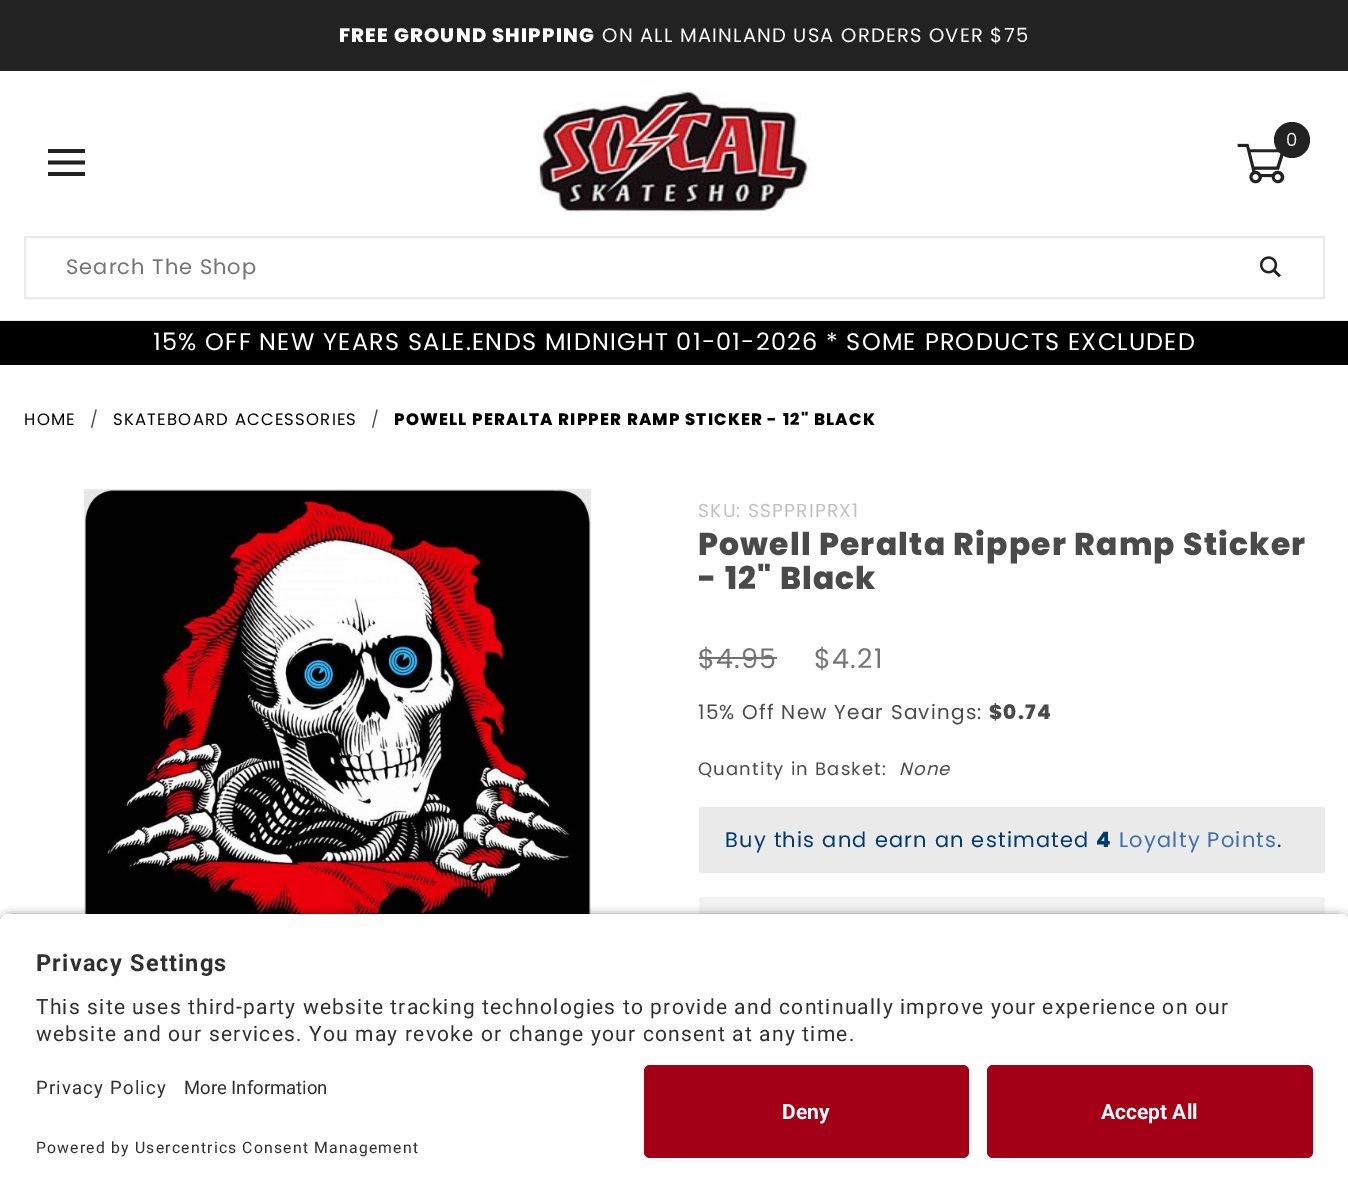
%!PS
<< /PageSize [1348 1194] /PageUsesTransparency true >> setpagedevice
/mt/moveto load def
/li/lineto load def
/ct/curveto load def
/cp/closepath load def
/fl/fill load def
/gs/gsave load def
/gr/grestore load def
/lw/setlinewidth load def
/co { dup -16 bitshift 255 div exch dup -8 bitshift 255 and 255 div exch 255 and 255 div setrgbcolor } def
/fn { [ exch dup neg 0 0 3 -1 roll 0 0 ] selectfont } def
/tx { co fn moveto show } def
/bx { co rectfill } def
/al { dup .setfillconstantalpha .setstrokeconstantalpha } def
/ci { newpath 0 360 arc closepath } def
/rr { 5 dict begin { /r /h /w /y /x } { exch def } forall
  x r add y moveto x w add y 2 copy h add r arct x w add y h add x 1 index r arct
  x y h add x y r arct x y 2 copy exch w add exch r arct closepath end } def
/sh { 12 dict begin { /a /b /q /h /w /y /x } { exch def } forall gsave /was 0 def
  9 -2 -9 { dup b mul 4 div /e exch def 1 sub .425 mul 2.718 exch exp 1 add a .99 .min exch div /now exch def
    1 1 now sub 1 was sub div sub al /was now def
    w h .min e 2 mul add 0 gt { x e sub y e sub w e 2 mul add h e 2 mul add
      q e add b .6 mul add w h .min 2 div e add .min 0 .max rr fill } if } for grestore end } def
/im { 5 dict begin { /h /w /y /x /name } { exch def } forall
  gsave x y translate w h scale
  w h 8 [w 0 0 h 0 0] name (r) file false 3 colorimage grestore end } def
0 .pushpdf14devicefilter
0 1194 translate 1 -1 scale
4 setmiterlimit
0 0 1348 1194 16#FFFFFF bx
0 320 1348 1 16#EAEAEA bx
0 0 1348 71 16#222222 bx
(media/1.raw) 537 91 275 121 im
1292 140 18 ci fl
(media/2.raw) 1237 143 48 41 im
48 172 mt 48 176 li 85 176 li 85 172 li cp 48 160.5 mt 48 164.5 li 85 164.5 li 85 160.5 li cp 48 149 mt 48 153 li 85 153 li 85 149 li cp fl
16#EAEAEA co
2 lw
25 237 1299 61 rectstroke
(media/3.raw) 1260 256 21 22 im
0 321 1348 44 16#000000 bx
(media/4.raw) 84 489 507 425 im
699 807 626 66 16#EAEAEA bx
699 897 626 17 16#F2F2F2 bx
16#000000 co
0 917 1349 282 12 5 .8 sh
gs
12 912 mt 1337 912 li 1343.5 912 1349 917.5 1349 924 ct 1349 1053 li 0 1053 li 0 924 li 0 917.5 5.5 912 12 912 ct cp clip newpath
0 914 1348 139 16#FFFFFF bx
gr
0 1053 1348 141 16#FFFFFF bx
16#A30018 co
644 1065 325 93 6 rr fl
987 1065 326 93 6 rr fl
/Poppins-ExtraBold 19.5 fn
16#FFFFFF co
339 42 mt 1.2 0 (FREE GROUND SHIPPING) ashow
/Poppins-Regular 19.5 fn
602 42 mt 1.2 0 (ON ALL MAINLAND USA ORDERS OVER $75) ashow
/Poppins-Regular 18 fn
16#EAEAEA co
1286 146 mt 1.2 0 (0) ashow
/Poppins-Regular 21 fn
16#757575 co
66 274 mt 1 0 (Search The Shop) ashow
/Poppins-Regular 24 fn
16#FFFFFF co
153 350 mt 1.2 0 (15% OFF NEW YEARS SALE.ENDS MIDNIGHT 01-01-2026 * SOME PRODUCTS EXCLUDED) ashow
/Poppins-Regular 16.5 fn
16#000000 co
24 425 mt 1.2 0 (HOME) ashow
16#4A4A4A co
90 425 mt 1.2 0 (/) ashow
16#000000 co
113 425 mt 1.2 0 (SKATEBOARD ACCESSORIES) ashow
16#4A4A4A co
371 425 mt 1.2 0 (/) ashow
/Poppins-ExtraBold 16.5 fn
16#000000 co
394 425 mt 1.2 0 (POWELL PERALTA RIPPER RAMP STICKER - 12" BLACK) ashow
/Poppins-Regular 18.75 fn
16#C0C0C0 co
698 517 mt 1.2 0 (SKU: SSPPRIPRX1) ashow
/Poppins-ExtraBold 31.4 fn
16#4A4A4A co
698 555 mt 1.2 0 (Powell Peralta Ripper Ramp Sticker) ashow
698 589 mt 1.2 0 (- 12" Black) ashow
/Poppins-Regular 27 fn
16#757575 co
698 668 mt 1.2 0 ($4.95) ashow
699 657 78 2 16#707070 bx
16#757575 co
814 668 mt 1.2 0 ($4.21) ashow
/Poppins-Regular 20 fn
16#4A4A4A co
698 719 mt 1.2 0 (15% Off New Year Savings:) ashow
/Poppins-ExtraBold 20 fn
989 719 mt 1.2 0 ($0.74) ashow
/Poppins-Regular 18 fn
698 775 mt 1.2 0 (Quantity in Basket:) ashow
/Poppins-Italic 18 fn
899 775 mt 1.2 0 (None) ashow
/Poppins-Regular 21 fn
16#003B6F co
725 847 mt 1.2 0 (Buy this and earn an estimated) ashow
/Poppins-ExtraBold 21 fn
1096 847 mt 1.2 0 (4) ashow
/Poppins-Regular 21 fn
16#3D70B2 co
1119 847 mt 1.2 0 (Loyalty Points) ashow
16#003B6F co
1277 847 mt 1.2 0 (.) ashow
/Roboto-Bold 23.5 fn
16#303030 co
36 971 mt 1.2 0 (Privacy Settings) ashow
/Roboto-Regular 21 fn
36 1014 mt 1.2 0 (This site uses third-party website tracking technologies to provide and continually improve your experience on our) ashow
36 1041 mt 1.2 0 (website and our services. You may revoke or change your consent at any time.) ashow
/Roboto-Regular 18.5 fn
36 1094 mt 1.2 0 (Privacy Policy) ashow
(More Information) 184 1094 /Roboto-Regular 18.5 16#303030 tx
/Roboto-Regular 15.75 fn
36 1153 mt 1.2 0 (Powered by Usercentrics Consent Management) ashow
(Deny) 782 1119 /Roboto-Bold 21 16#FFFFFF tx
(Accept All) 1101 1119 /Roboto-Bold 21 16#FFFFFF tx
.poppdf14devicefilter showpage
